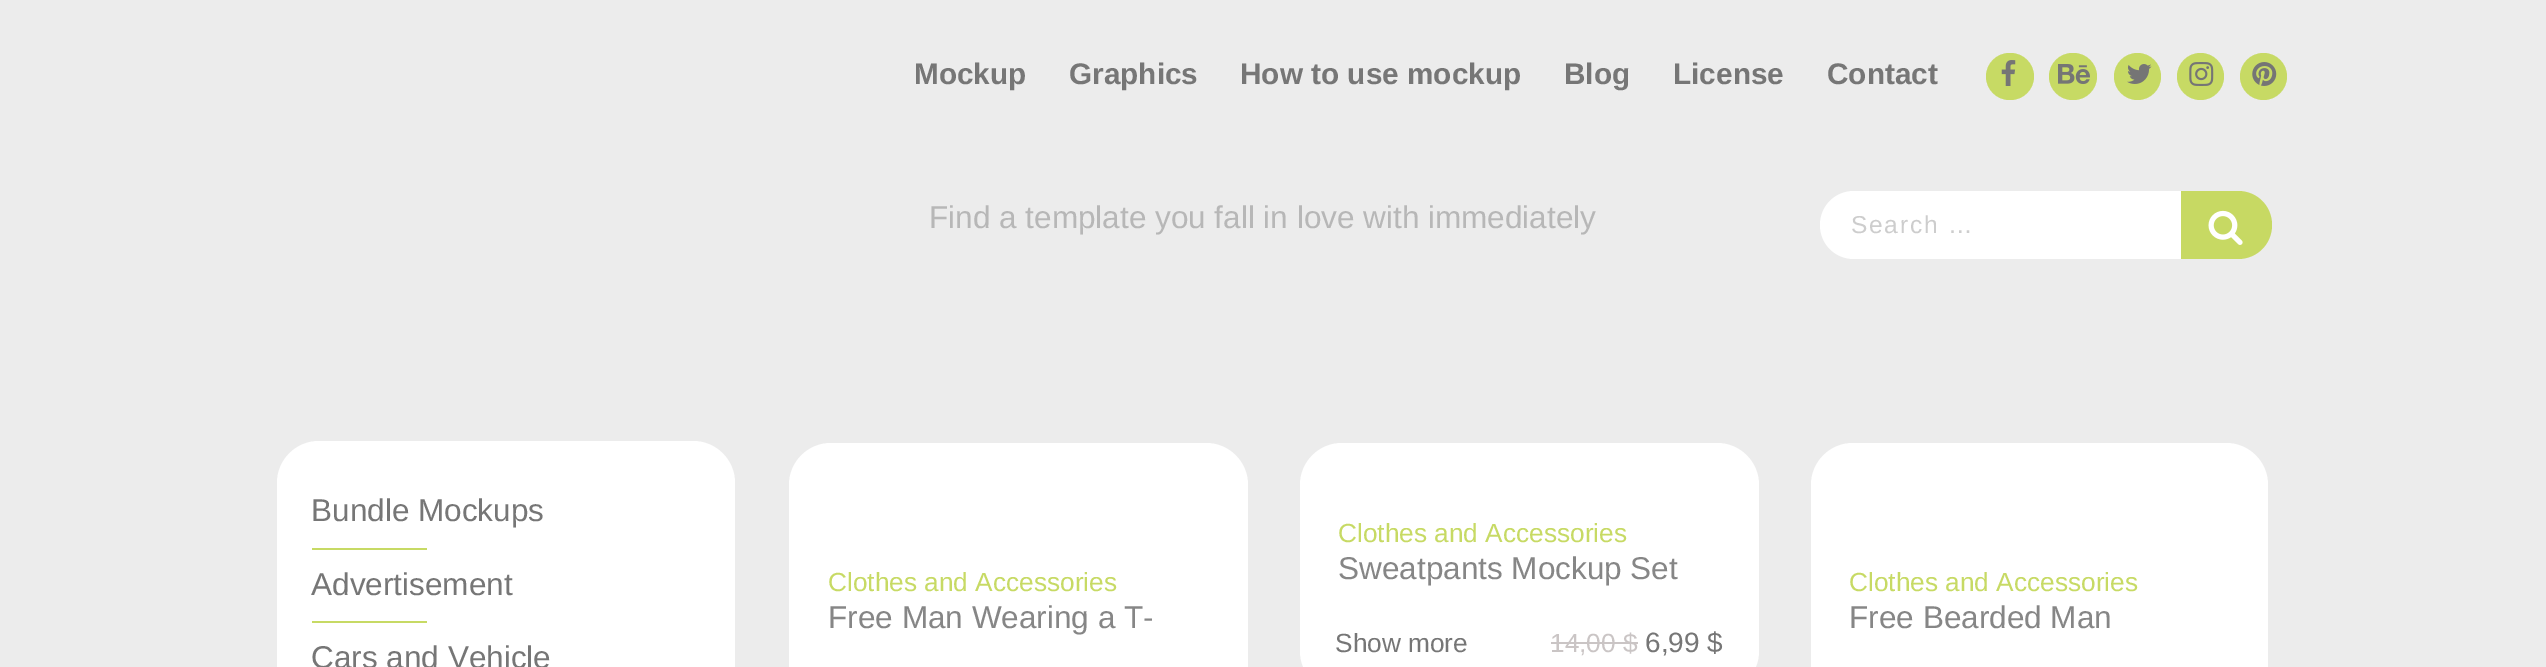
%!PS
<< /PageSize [2546 667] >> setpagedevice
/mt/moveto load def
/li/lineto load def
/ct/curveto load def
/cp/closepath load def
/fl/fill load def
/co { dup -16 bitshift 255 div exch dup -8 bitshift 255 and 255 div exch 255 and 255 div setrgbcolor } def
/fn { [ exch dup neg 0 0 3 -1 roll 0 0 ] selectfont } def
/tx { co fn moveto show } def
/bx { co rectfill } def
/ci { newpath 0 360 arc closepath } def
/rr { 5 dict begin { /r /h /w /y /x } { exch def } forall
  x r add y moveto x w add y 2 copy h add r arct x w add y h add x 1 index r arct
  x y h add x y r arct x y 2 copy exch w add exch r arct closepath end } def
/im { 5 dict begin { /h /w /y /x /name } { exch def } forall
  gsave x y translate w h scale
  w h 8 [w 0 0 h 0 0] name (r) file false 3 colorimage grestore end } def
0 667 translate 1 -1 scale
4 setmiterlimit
0 0 2546 667 16#ECECEC bx
16#C7DA64 co
1986 53 48 47 23.5 rr fl
(media/1.raw) 2001 60 15 26 im
2049 53 48 47 23.5 rr fl
(media/2.raw) 2058 64 32 20 im
2137.5 76.5 23.5 ci fl
(media/3.raw) 2127 64 25 20 im
2200.5 76.5 23.5 ci fl
(media/4.raw) 2189 62 25 24 im
2263.5 76.5 23.5 ci fl
(media/5.raw) 2252 62 25 24 im
16#FFFFFF co
1854 191 mt 2195 191 li 2195 259 li 1854 259 li 1835 259 1820 244 1820 225 ct 1820 206 1835 191 1854 191 ct cp fl
16#C7D963 co
2181 191 mt 2238 191 li 2257 191 2272 206 2272 225 ct 2272 244 2257 259 2238 259 ct 2181 259 li cp fl
(media/6.raw) 2208 210 35 35 im
16#FFFFFF co
277 441 458 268 42 rr fl
312 548 115 2 16#C7DA64 bx
312 621 115 2 16#C7DA64 bx
16#FFFFFF co
789 443 459 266 42 rr fl
1300 443 459 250 42 rr fl
1551 642 87 2 16#CAC5C5 bx
16#FFFFFF co
1811 443 457 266 42 rr fl
(Mockup) 914 84 /LiberationSans-Bold 29.75 16#767676 tx
(Graphics) 1069 84 /LiberationSans-Bold 29.75 16#767676 tx
(How to use mockup) 1240 84 /LiberationSans-Bold 29.75 16#767676 tx
(Blog) 1564 84 /LiberationSans-Bold 29.75 16#767676 tx
(License) 1673 84 /LiberationSans-Bold 29.75 16#767676 tx
(Contact) 1827 84 /LiberationSans-Bold 29.75 16#767676 tx
(Find a template you fall in love with immediately) 929 228 /LiberationSans-Regular 31.5 16#B7B7B7 tx
/LiberationSans-Regular 24.5 fn
16#CDCDCD co
1851 233 mt 1.75 0 (Search …) ashow
(Bundle Mockups) 311 521 /LiberationSans-Regular 31.5 16#767676 tx
(Advertisement) 311 595 /LiberationSans-Regular 31.5 16#767676 tx
(Cars and Vehicle) 311 668 /LiberationSans-Regular 31.5 16#767676 tx
(Clothes and Accessories) 828 591 /LiberationSans-Regular 26.25 16#C7DA64 tx
(Free Man Wearing a T-) 828 628 /LiberationSans-Regular 31.5 16#868686 tx
(Clothes and Accessories) 1338 542 /LiberationSans-Regular 26.25 16#C7DA64 tx
(Sweatpants Mockup Set) 1338 579 /LiberationSans-Regular 31.5 16#868686 tx
(Show more) 1335 652 /LiberationSans-Regular 26.25 16#767676 tx
(14,00 $) 1550 652 /LiberationSans-Regular 26.25 16#CAC5C5 tx
(6,99 $) 1645 652 /LiberationSans-Regular 28 16#767676 tx
(Clothes and Accessories) 1849 591 /LiberationSans-Regular 26.25 16#C7DA64 tx
(Free Bearded Man) 1849 628 /LiberationSans-Regular 31.5 16#868686 tx
showpage
